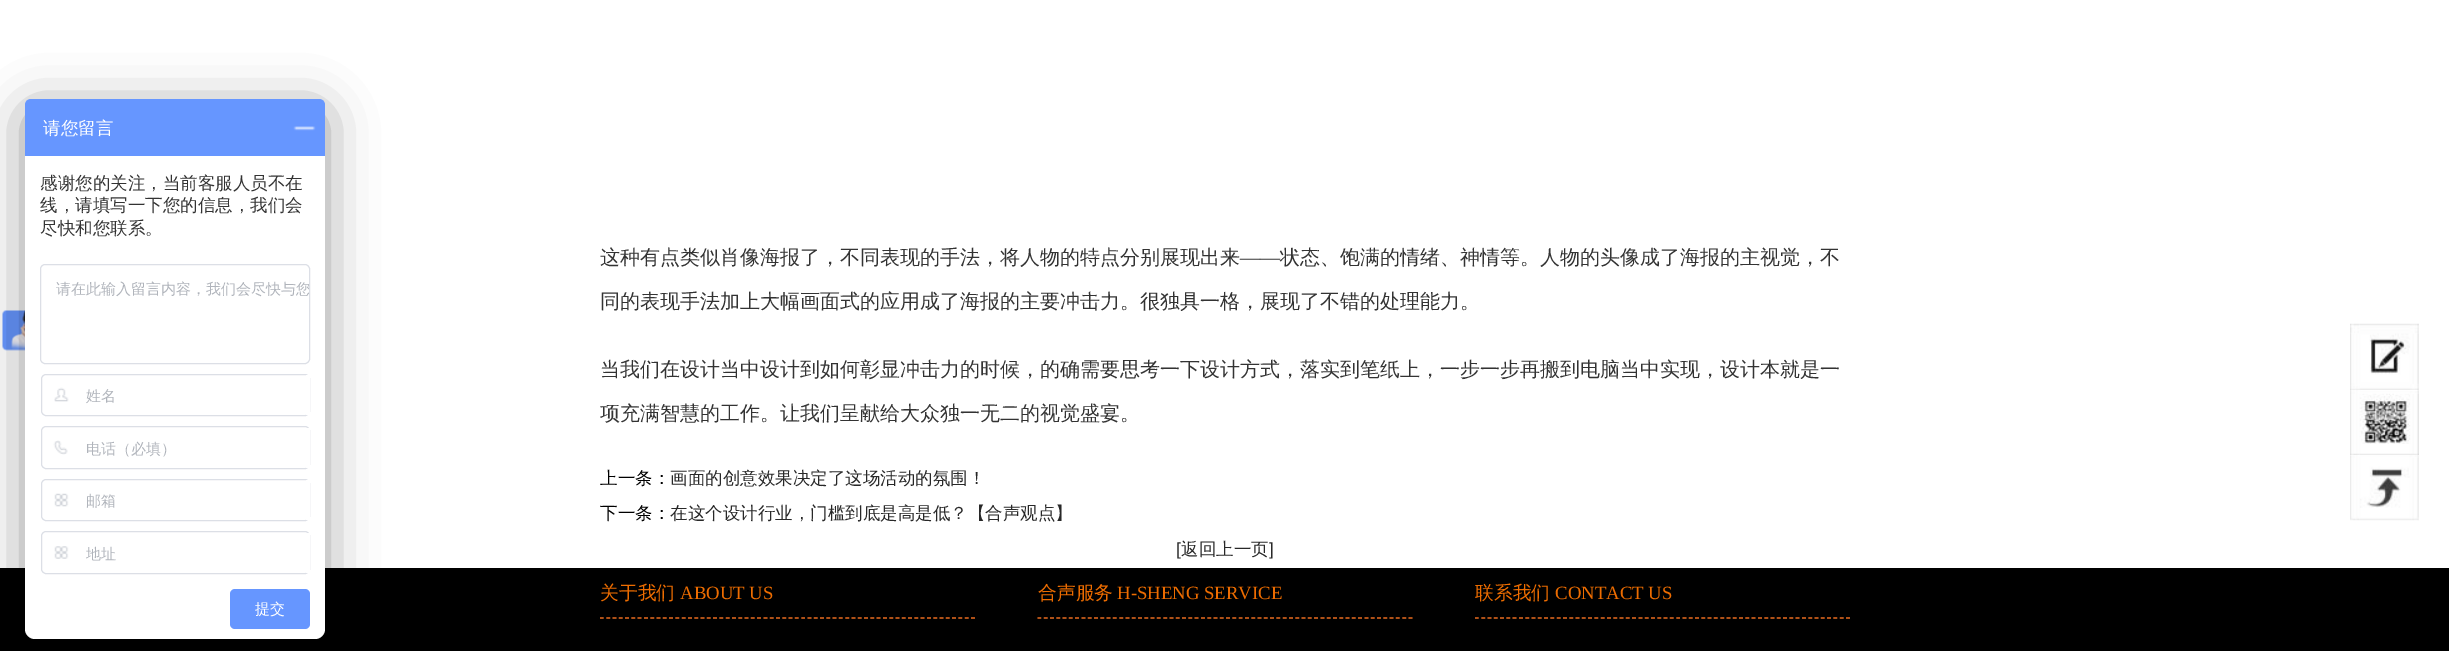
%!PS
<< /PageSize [2449 651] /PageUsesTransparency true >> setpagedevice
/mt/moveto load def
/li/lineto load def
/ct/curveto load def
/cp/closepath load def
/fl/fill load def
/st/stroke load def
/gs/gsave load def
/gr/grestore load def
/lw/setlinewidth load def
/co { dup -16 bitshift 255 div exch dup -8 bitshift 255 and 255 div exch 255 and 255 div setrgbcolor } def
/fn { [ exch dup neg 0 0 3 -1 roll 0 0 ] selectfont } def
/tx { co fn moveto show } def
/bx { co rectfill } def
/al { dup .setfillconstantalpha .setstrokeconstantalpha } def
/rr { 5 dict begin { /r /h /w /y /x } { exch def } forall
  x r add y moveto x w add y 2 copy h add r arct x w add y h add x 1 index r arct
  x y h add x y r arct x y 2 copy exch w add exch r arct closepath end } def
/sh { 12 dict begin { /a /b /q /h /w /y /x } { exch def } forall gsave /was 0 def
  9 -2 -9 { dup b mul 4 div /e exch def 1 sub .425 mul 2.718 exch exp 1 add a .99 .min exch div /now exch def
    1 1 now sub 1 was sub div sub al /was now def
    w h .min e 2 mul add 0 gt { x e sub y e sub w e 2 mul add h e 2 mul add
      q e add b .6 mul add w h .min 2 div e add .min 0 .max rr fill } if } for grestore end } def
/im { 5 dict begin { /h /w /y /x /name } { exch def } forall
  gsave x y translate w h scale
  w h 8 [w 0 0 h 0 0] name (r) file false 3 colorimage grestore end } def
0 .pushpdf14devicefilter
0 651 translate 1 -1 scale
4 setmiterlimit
0 0 2449 651 16#FFFFFF bx
(media/1.raw) 2 310 23 41 im
0 568 2449 83 16#000000 bx
25 109 300 540 10 25 .4 sh
16#FFFFFF co
25 99 300 540 10 rr fl
16#6696FF co
31 99 mt 319 99 li 322.5 99 325 101.5 325 105 ct 325 156 li 25 156 li 25 105 li 25 101.5 27.5 99 31 99 ct cp fl
(media/2.raw) 293 126 23 5 im
16#DCDFE6 co
40.5 264.5 269 99 4.5 rr st
41.5 374.5 268 41 4.5 rr st
(media/3.raw) 54 387 15 15 im
306 375 4 40 16#FFFFFF bx
16#DCDFE6 co
41.5 426.5 268 42 4.5 rr st
(media/4.raw) 53 440 15 15 im
306 428 4 40 16#FFFFFF bx
16#DCDFE6 co
41.5 479.5 268 41 4.5 rr st
(media/5.raw) 54 493 15 14 im
306 480 4 40 16#FFFFFF bx
16#DCDFE6 co
41.5 531.5 268 42 4.5 rr st
(media/6.raw) 54 546 15 13 im
306 533 4 40 16#FFFFFF bx
16#6696FF co
230 589 80 40 5 rr fl
(media/7.raw) 2350 323 69 67 im
(media/8.raw) 2350 390 69 65 im
(media/9.raw) 2350 454 69 67 im
16#ED6D1F co
1.2 lw
[3.75 2.54] 0 setdash
600 618 mt 975 618 li st
1037.5 618 mt 1412.5 618 li st
1475 618 mt 1850 618 li st
(请您留言) 43 134 /WenQuanYiZenHei-Medium 17.5 16#FFFFFF tx
(感谢您的关注，当前客服人员不在) 40 189 /WenQuanYiZenHei-Medium 17.5 16#333333 tx
(线，请填写一下您的信息，我们会) 40 211 /WenQuanYiZenHei-Medium 17.5 16#333333 tx
(尽快和您联系。) 40 234 /WenQuanYiZenHei-Medium 17.5 16#333333 tx
gs
41 265 268 98 4 rr clip newpath
(请在此输入留言内容，我们会尽快与您) 56 294 /WenQuanYiZenHei-Medium 15 16#B0B4BB tx
gr
(姓名) 86 401 /WenQuanYiZenHei-Medium 15 16#B0B4BB tx
(电话（必填）) 86 454 /WenQuanYiZenHei-Medium 15 16#B0B4BB tx
(邮箱) 86 506 /WenQuanYiZenHei-Medium 15 16#B0B4BB tx
(地址) 86 559 /WenQuanYiZenHei-Medium 15 16#B0B4BB tx
(提交) 255 614 /WenQuanYiZenHei-Medium 15 16#FFFFFF tx
(这种有点类似肖像海报了，不同表现的手法，将人物的特点分别展现出来) 600 264 /WenQuanYiZenHei-Medium 20 16#333333 tx
(——) 1240 264 /LiberationSerif-Regular 20 16#333333 tx
(状态、饱满的情绪、神情等。人物的头像成了海报的主视觉，不) 1280 264 /WenQuanYiZenHei-Medium 20 16#333333 tx
(同的表现手法加上大幅画面式的应用成了海报的主要冲击力。很独具一格，展现了不错的处理能力。) 600 308 /WenQuanYiZenHei-Medium 20 16#333333 tx
(当我们在设计当中设计到如何彰显冲击力的时候，的确需要思考一下设计方式，落实到笔纸上，一步一步再搬到电脑当中实现，设计本就是一) 600 376 /WenQuanYiZenHei-Medium 20 16#333333 tx
(项充满智慧的工作。让我们呈献给大众独一无二的视觉盛宴。) 600 420 /WenQuanYiZenHei-Medium 20 16#333333 tx
(上一条：) 600 484 /WenQuanYiZenHei-Medium 17.5 16#000000 tx
(画面的创意效果决定了这场活动的氛围！) 670 484 /WenQuanYiZenHei-Medium 17.5 16#282828 tx
(下一条：) 600 519 /WenQuanYiZenHei-Medium 17.5 16#000000 tx
(在这个设计行业，门槛到底是高是低？【合声观点】) 670 519 /WenQuanYiZenHei-Medium 17.5 16#282828 tx
([) 1176 555 /LiberationSans-Regular 17.5 16#282828 tx
(返回上一页) 1181 555 /WenQuanYiZenHei-Medium 17.5 16#282828 tx
(]) 1269 555 /LiberationSans-Regular 17.5 16#282828 tx
(关于我们) 600 599 /WenQuanYiZenHei-Medium 18.75 16#ED6C00 tx
(ABOUT US) 680 599 /LiberationSerif-Regular 18.75 16#ED6C00 tx
(合声服务) 1038 599 /WenQuanYiZenHei-Medium 18.75 16#ED6C00 tx
(H-SHENG SERVICE) 1117 599 /LiberationSerif-Regular 18.75 16#ED6C00 tx
(联系我们) 1475 599 /WenQuanYiZenHei-Medium 18.75 16#ED6C00 tx
(CONTACT US) 1555 599 /LiberationSerif-Regular 18.75 16#ED6C00 tx
.poppdf14devicefilter showpage
